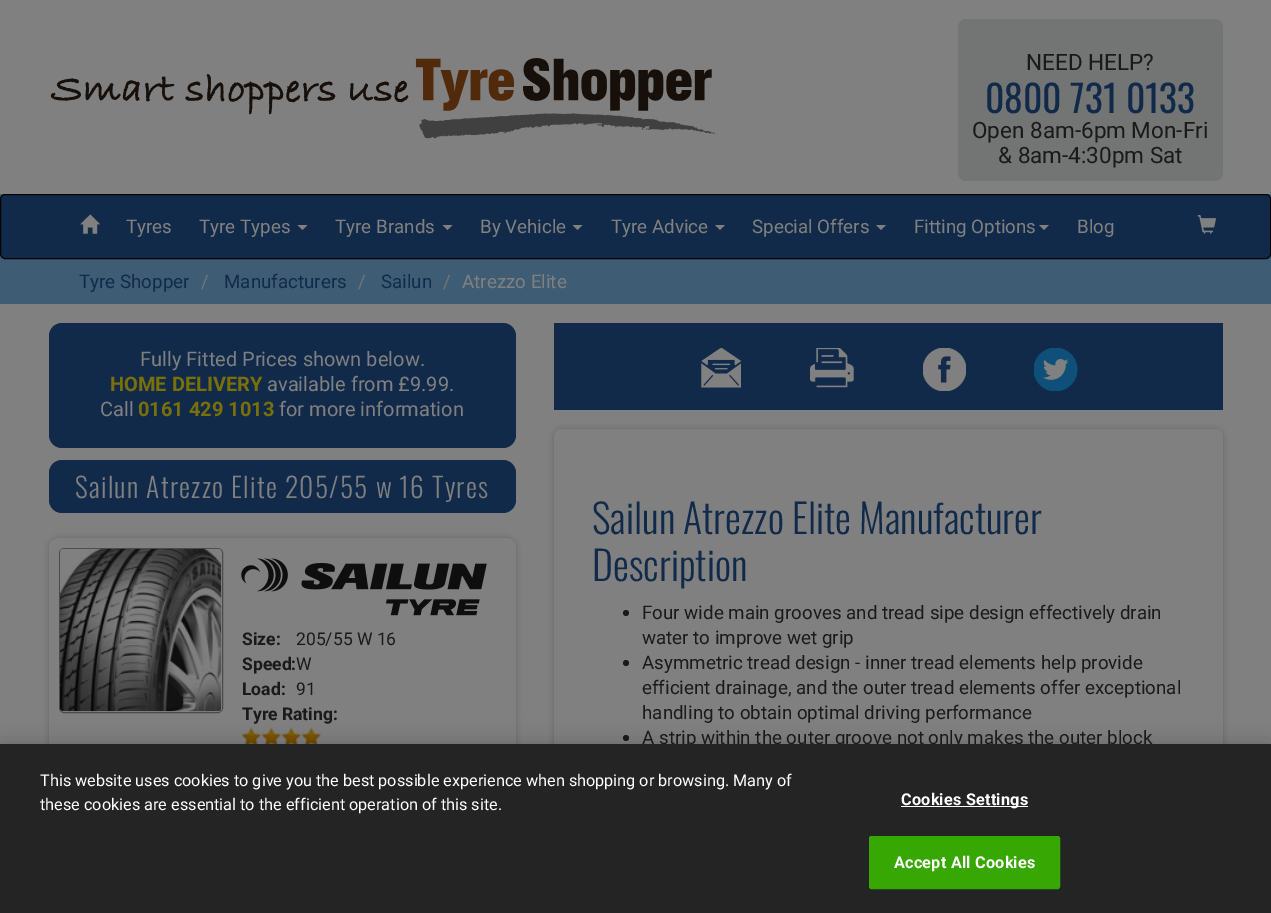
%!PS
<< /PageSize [1271 913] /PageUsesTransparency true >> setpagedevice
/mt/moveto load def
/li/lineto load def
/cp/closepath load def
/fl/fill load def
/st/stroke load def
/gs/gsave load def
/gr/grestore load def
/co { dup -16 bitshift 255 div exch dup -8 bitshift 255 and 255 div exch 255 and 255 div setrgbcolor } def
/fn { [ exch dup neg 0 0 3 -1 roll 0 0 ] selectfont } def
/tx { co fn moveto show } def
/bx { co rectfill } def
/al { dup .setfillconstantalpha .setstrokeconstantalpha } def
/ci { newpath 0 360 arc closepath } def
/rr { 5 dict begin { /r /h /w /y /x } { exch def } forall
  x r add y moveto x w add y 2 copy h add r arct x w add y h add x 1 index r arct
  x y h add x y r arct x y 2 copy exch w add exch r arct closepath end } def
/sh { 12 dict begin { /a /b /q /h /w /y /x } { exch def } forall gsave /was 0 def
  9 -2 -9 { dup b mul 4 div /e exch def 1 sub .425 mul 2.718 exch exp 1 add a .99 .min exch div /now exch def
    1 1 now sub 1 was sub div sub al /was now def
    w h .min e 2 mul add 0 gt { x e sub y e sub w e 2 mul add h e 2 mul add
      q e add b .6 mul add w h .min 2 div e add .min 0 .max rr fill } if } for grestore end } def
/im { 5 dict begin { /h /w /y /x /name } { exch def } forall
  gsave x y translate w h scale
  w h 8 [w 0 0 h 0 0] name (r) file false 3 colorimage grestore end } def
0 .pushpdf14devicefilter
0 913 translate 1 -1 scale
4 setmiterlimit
0 0 1271 913 16#808080 bx
(media/1.raw) 50 58 666 81 im
16#737474 co
958 19 265 162 8 rr fl
0 194 1271 110 16#3E5C74 bx
16#122A4A co
.5 194.5 1270 64 4.5 rr gs fl gr
16#040404 co
st
(media/2.raw) 80 214 21 20 im
16#808080 co
297.5 225 mt 307.5 225 li 302.5 230 li cp fl
442.5 225 mt 452.5 225 li 447.5 230 li cp fl
572.5 225 mt 582.5 225 li 577.5 230 li cp fl
715 225 mt 725 225 li 720 230 li cp fl
876 225 mt 886 225 li 881 230 li cp fl
1039 225 mt 1049 225 li 1044 230 li cp fl
(media/3.raw) 1197 215 19 19 im
16#122A4A co
49 323 467 125 13 rr fl
49 460 467 53 13 rr fl
16#666666 co
49 538 467 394 10 3 1 sh
16#808080 co
49 538 467 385 10 rr fl
16#4A4B4C co
59.5 548.5 163 164 4.5 rr st
(media/4.raw) 60 548 162 164 im
(media/5.raw) 241 558 246 58 im
(media/6.raw) 241 727 20 17 im
(media/7.raw) 261 727 20 17 im
(media/7.raw) 281 727 20 17 im
(media/7.raw) 301 727 20 17 im
554 323 669 87 16#122A4A bx
(media/8.raw) 701 348 40 40 im
(media/9.raw) 810 348 44 40 im
(media/10.raw) 923 348 43 43 im
(media/11.raw) 1034 348 44 43 im
16#666666 co
554 429 669 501 8 3 1 sh
16#808080 co
554 429 669 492 8 rr fl
16#1A1A1A co
626 613 3 ci fl
626 663 3 ci fl
626 738 3 ci fl
16#000000 co
0 744 1271 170 0 11 .2 sh
(NEED HELP?) 1026 70 /Roboto-Regular 22.5 16#1A1A1A tx
(0800 731 0133) 985 113 /Oswald-Regular 37.5 16#122A4A tx
(Open 8am-6pm Mon-Fri) 972 138 /Roboto-Regular 22.5 16#1A1A1A tx
(& 8am-4:30pm Sat) 998 163 /Roboto-Regular 22.5 16#1A1A1A tx
(Tyres) 126 233 /Roboto-Regular 18.75 16#808080 tx
(Tyre Types) 199 233 /Roboto-Regular 18.75 16#808080 tx
(Tyre Brands) 335 233 /Roboto-Regular 18.75 16#808080 tx
(By Vehicle) 480 233 /Roboto-Regular 18.75 16#808080 tx
(Tyre Advice) 611 233 /Roboto-Regular 18.75 16#808080 tx
(Special Offers) 752 233 /Roboto-Regular 18.75 16#808080 tx
(Fitting Options) 914 233 /Roboto-Regular 18.75 16#808080 tx
(Blog) 1077 233 /Roboto-Regular 18.75 16#808080 tx
(Tyre Shopper) 79 288 /Roboto-Regular 18.75 16#122A4A tx
(/) 201 288 /Roboto-Regular 18.75 16#737474 tx
(Manufacturers) 224 288 /Roboto-Regular 18.75 16#122A4A tx
(/) 358 288 /Roboto-Regular 18.75 16#737474 tx
(Sailun) 381 288 /Roboto-Regular 18.75 16#122A4A tx
(/) 443 288 /Roboto-Regular 18.75 16#737474 tx
(Atrezzo Elite) 462 288 /Roboto-Regular 18.75 16#808080 tx
(Fully Fitted Prices shown below.) 140 366 /Roboto-Regular 20 16#808080 tx
(HOME DELIVERY) 110 391 /Roboto-Bold 20 16#797009 tx
(available from £9.99.) 267 391 /Roboto-Regular 20 16#808080 tx
(Call) 100 416 /Roboto-Regular 20 16#808080 tx
(0161 429 1013) 138 416 /Roboto-Bold 20 16#797009 tx
(for more information) 279 416 /Roboto-Regular 20 16#808080 tx
/Oswald-Light 27.5 fn
75 498 mt 1.25 0 (Sailun Atrezzo Elite 205/55 w 16 Tyres) ashow
(Size:) 242 645 /Roboto-Bold 17.5 16#1A1A1A tx
(205/55 W 16) 296 645 /Roboto-Regular 17.5 16#1A1A1A tx
(Speed:) 242 670 /Roboto-Bold 17.5 16#1A1A1A tx
(W) 296 670 /Roboto-Regular 17.5 16#1A1A1A tx
(Load:) 242 695 /Roboto-Bold 17.5 16#1A1A1A tx
(91) 296 695 /Roboto-Regular 17.5 16#1A1A1A tx
(Tyre Rating:) 242 720 /Roboto-Bold 17.5 16#1A1A1A tx
(Sailun Atrezzo Elite Manufacturer) 592 534 /Oswald-Light 40 16#122A4A tx
(Description) 592 581 /Oswald-Light 40 16#122A4A tx
(Four wide main grooves and tread sipe design effectively drain) 642 619 /Roboto-Regular 18.75 16#1A1A1A tx
(water to improve wet grip) 642 644 /Roboto-Regular 18.75 16#1A1A1A tx
(Asymmetric tread design - inner tread elements help provide) 642 669 /Roboto-Regular 18.75 16#1A1A1A tx
(efficient drainage, and the outer tread elements offer exceptional) 642 694 /Roboto-Regular 18.75 16#1A1A1A tx
(handling to obtain optimal driving performance) 642 719 /Roboto-Regular 18.75 16#1A1A1A tx
(A strip within the outer groove not only makes the outer block) 642 744 /Roboto-Regular 18.75 16#1A1A1A tx
0 744 1271 169 16#242424 bx
(This website uses cookies to give you the best possible experience when shopping or browsing. Many of) 40 786 /Roboto-Regular 16.25 16#FFFFFF tx
(these cookies are essential to the efficient operation of this site.) 40 810 /Roboto-Regular 16.25 16#FFFFFF tx
901 806 127 1 16#FFFFFF bx
/Roboto-Bold 16.25 fn
901 805 mt .2 0 (Cookies Settings) ashow
16#37A703 co
869.5 836.5 190 52 2 rr gs fl gr
st
16#FFFFFF co
894 868 mt .2 0 (Accept All Cookies) ashow
.poppdf14devicefilter showpage
